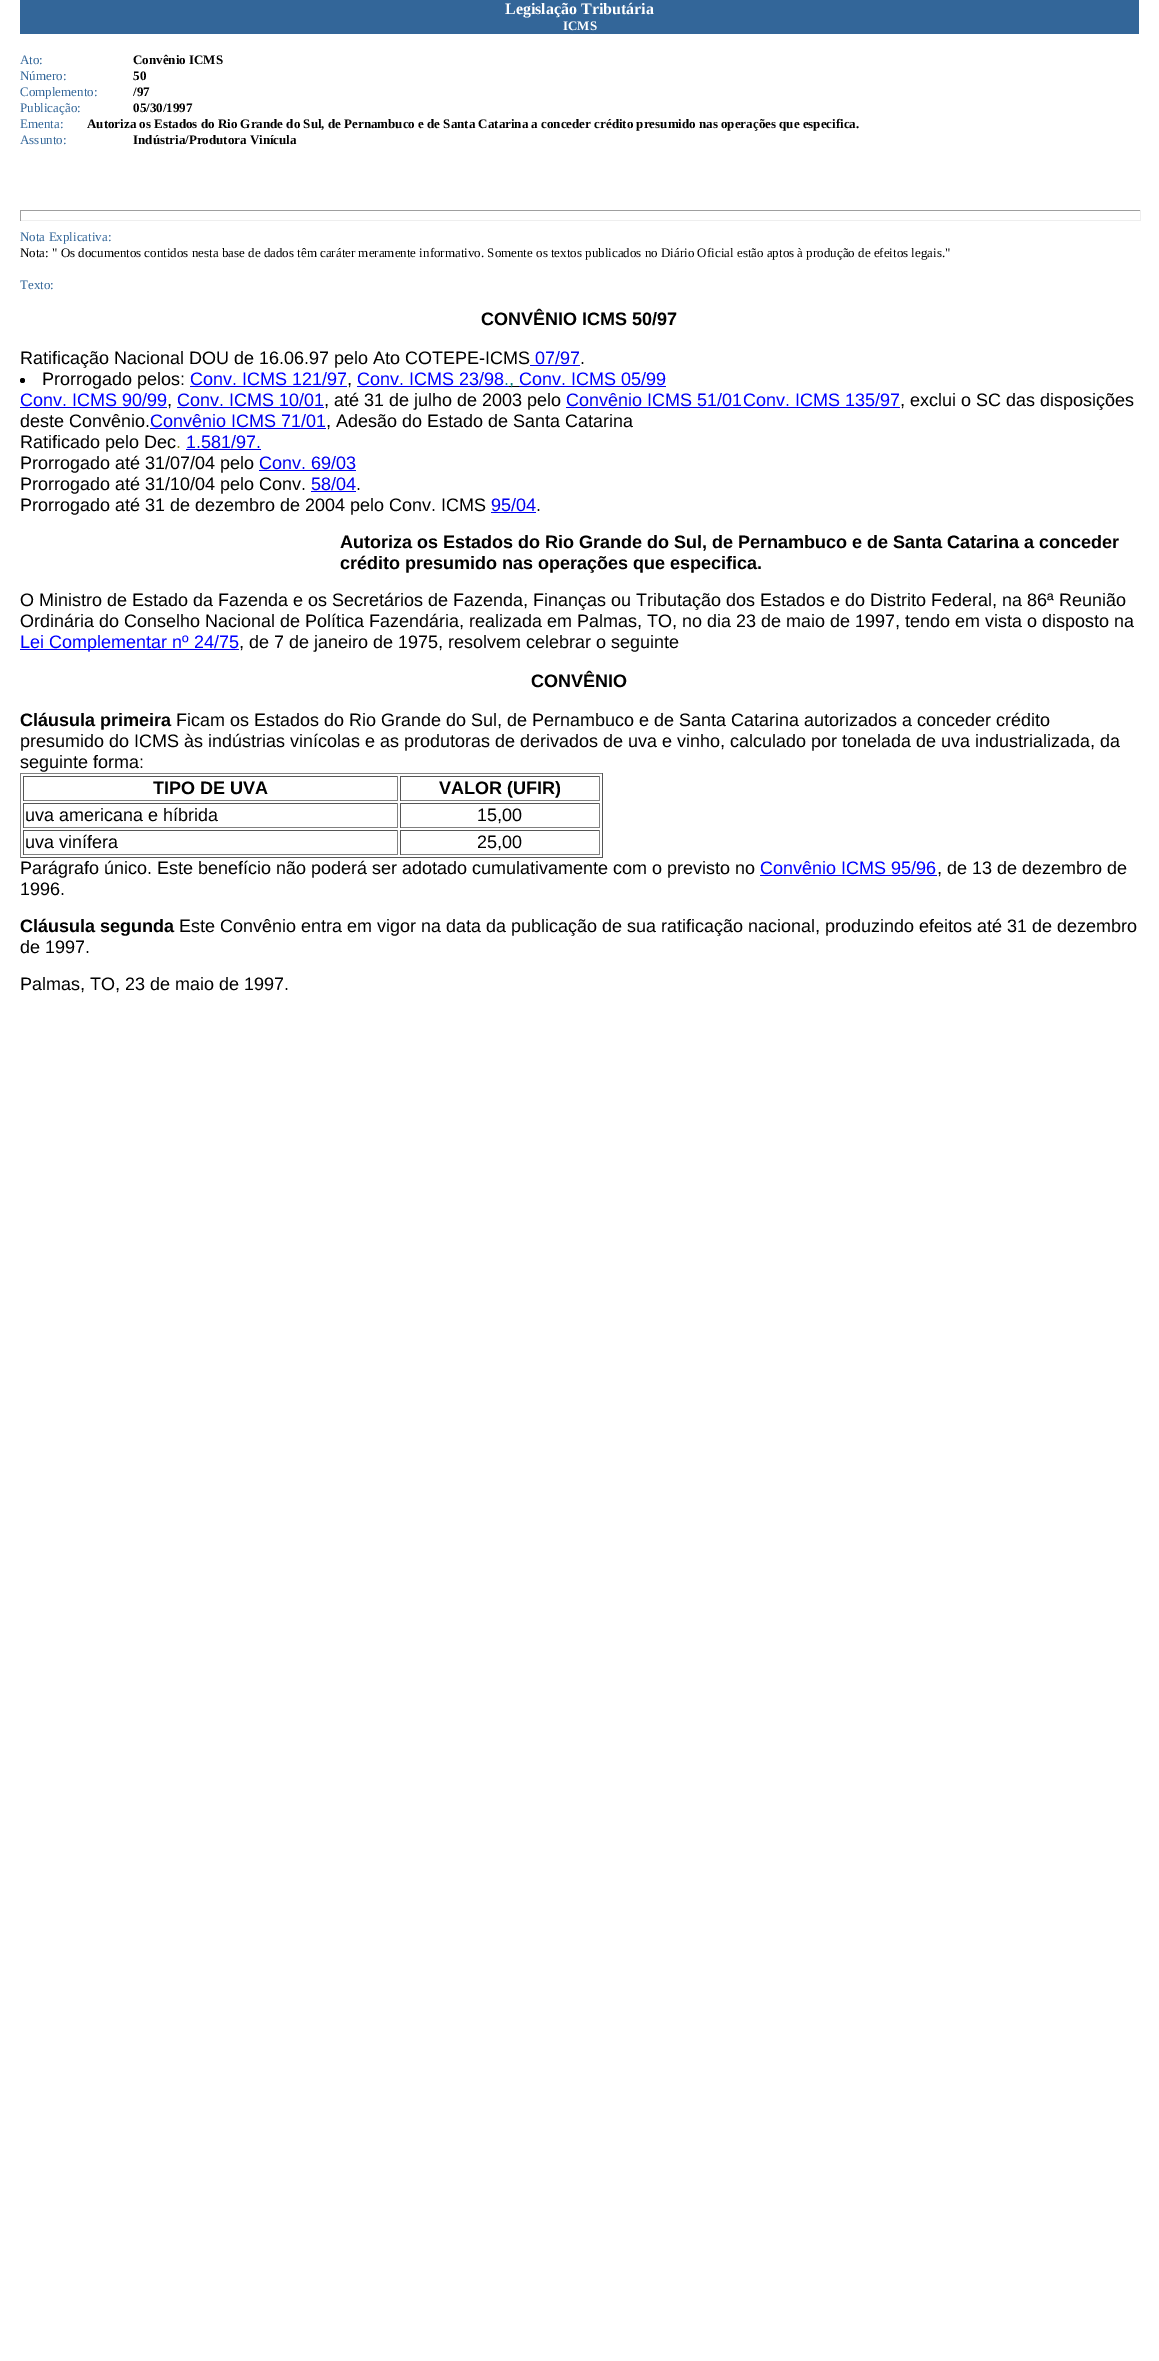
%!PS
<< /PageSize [1159 2361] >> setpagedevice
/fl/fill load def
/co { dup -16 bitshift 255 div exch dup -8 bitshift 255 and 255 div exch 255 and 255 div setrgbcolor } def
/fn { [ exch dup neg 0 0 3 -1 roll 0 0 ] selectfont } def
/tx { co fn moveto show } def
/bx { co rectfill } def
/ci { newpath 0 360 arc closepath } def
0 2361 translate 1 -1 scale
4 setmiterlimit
0 0 1159 2361 16#FFFFFF bx
20 0 1119 34 16#336699 bx
20 210 1121 1 16#9F9F9F bx
1140 210 1 11 16#EEEEEE bx
20 220 1121 1 16#EEEEEE bx
20 210 1 11 16#9F9F9F bx
530 365 50 1 16#0000EE bx
16#000000 co
22.5 380.5 2.5 ci fl
190 386 157 1 16#0000EE bx
519 386 147 1 16#0000EE bx
357 386 152 1 16#0000EE bx
509 386 10 1 16#000000 bx
20 407 147 1 16#0000EE bx
177 407 147 1 16#0000EE bx
566 407 334 1 16#0000EE bx
150 428 176 1 16#0000EE bx
186 449 75 1 16#0000EE bx
259 470 97 1 16#0000EE bx
311 491 45 1 16#0000EE bx
491 512 45 1 16#0000EE bx
20 649 219 1 16#0000EE bx
20 773 583 1 16#808080 bx
602 773 1 85 16#555555 bx
20 857 583 1 16#555555 bx
20 773 1 85 16#808080 bx
23 776 375 1 16#555555 bx
397 776 1 25 16#808080 bx
23 800 375 1 16#808080 bx
23 776 1 25 16#555555 bx
400 776 200 1 16#555555 bx
599 776 1 25 16#808080 bx
400 800 200 1 16#808080 bx
400 776 1 25 16#555555 bx
23 803 375 1 16#555555 bx
397 803 1 25 16#808080 bx
23 827 375 1 16#808080 bx
23 803 1 25 16#555555 bx
400 803 200 1 16#555555 bx
599 803 1 25 16#808080 bx
400 827 200 1 16#808080 bx
400 803 1 25 16#555555 bx
23 830 375 1 16#555555 bx
397 830 1 25 16#808080 bx
23 854 375 1 16#808080 bx
23 830 1 25 16#555555 bx
400 830 200 1 16#555555 bx
599 830 1 25 16#808080 bx
400 854 200 1 16#808080 bx
400 830 1 25 16#555555 bx
760 875 177 1 16#0000EE bx
(Legislação Tributária) 505 14 /LiberationSerif-Bold 16 16#FFFFFF tx
(ICMS) 563 30 /LiberationSerif-Bold 13 16#FFFFFF tx
(Ato:) 20 64 /LiberationSerif-Regular 13 16#336699 tx
(Convênio ICMS) 133 64 /LiberationSerif-Bold 13 16#000000 tx
(Número:) 20 80 /LiberationSerif-Regular 13 16#336699 tx
(50) 133 80 /LiberationSerif-Bold 13 16#000000 tx
(Complemento:) 20 96 /LiberationSerif-Regular 13 16#336699 tx
(/97) 133 96 /LiberationSerif-Bold 13 16#000000 tx
(Publicação:) 20 112 /LiberationSerif-Regular 13 16#336699 tx
(05/30/1997) 133 112 /LiberationSerif-Bold 13 16#000000 tx
(Ementa:) 20 128 /LiberationSerif-Regular 13 16#336699 tx
(Autoriza os Estados do Rio Grande do Sul, de Pernambuco e de Santa Catarina a conceder crédito presumido nas operações que especifica.) 87 128 /LiberationSerif-Bold 13 16#000000 tx
(Assunto:) 20 144 /LiberationSerif-Regular 13 16#336699 tx
(Indústria/Produtora Vinícula) 133 144 /LiberationSerif-Bold 13 16#000000 tx
(Nota Explicativa:) 20 241 /LiberationSerif-Regular 13 16#336699 tx
(Nota: " Os documentos contidos nesta base de dados têm caráter meramente informativo. Somente os textos publicados no Diário Oficial estão aptos à produção de efeitos legais.") 20 257 /LiberationSerif-Regular 13 16#000000 tx
(Texto:) 20 289 /LiberationSerif-Regular 13 16#336699 tx
(CONVÊNIO ICMS 50/97) 481 325 /LiberationSans-Bold 18 16#000000 tx
(Ratificação Nacional DOU de 16.06.97 pelo Ato COTEPE-ICMS) 20 364 /LiberationSans-Regular 18 16#000000 tx
(07/97) 535 364 /LiberationSans-Regular 18 16#0000EE tx
(.) 580 364 /LiberationSans-Regular 18 16#000000 tx
(Prorrogado pelos:) 42 385 /LiberationSans-Regular 18 16#000000 tx
(Conv. ICMS 121/97) 190 385 /LiberationSans-Regular 18 16#0000FF tx
(Conv. ICMS 23/98) 357 385 /LiberationSans-Regular 18 16#0000FF tx
(Conv. ICMS 05/99) 519 385 /LiberationSans-Regular 18 16#0000FF tx
(,) 347 385 /LiberationSans-Regular 18 16#000000 tx
(.) 504 385 /LiberationSans-Regular 18 16#008080 tx
(,) 509 385 /LiberationSans-Regular 18 16#008080 tx
(Conv. ICMS 90/99) 20 406 /LiberationSans-Regular 18 16#0000FF tx
(,) 167 406 /LiberationSans-Regular 18 16#000000 tx
(Conv. ICMS 10/01) 177 406 /LiberationSans-Regular 18 16#0000EE tx
(, até 31 de julho de 2003 pelo) 324 406 /LiberationSans-Regular 18 16#000000 tx
(Convênio ICMS 51/01) 566 406 /LiberationSans-Regular 18 16#0000EE tx
(Conv. ICMS 135/97) 743 406 /LiberationSans-Regular 18 16#0000FF tx
(, exclui o SC das disposições) 900 406 /LiberationSans-Regular 18 16#000000 tx
(deste Convênio.) 20 427 /LiberationSans-Regular 18 16#000000 tx
(Convênio ICMS 71/01) 150 427 /LiberationSans-Regular 18 16#0000EE tx
(, Adesão do Estado de Santa Catarina) 326 427 /LiberationSans-Regular 18 16#000000 tx
(Ratificado pelo Dec) 20 448 /LiberationSans-Regular 18 16#000000 tx
(.) 176 448 /LiberationSans-Regular 18 16#808000 tx
(1.581/97.) 186 448 /LiberationSans-Regular 18 16#0000EE tx
(Prorrogado até 31/07/04 pelo) 20 469 /LiberationSans-Regular 18 16#000000 tx
(Conv. 69/03) 259 469 /LiberationSans-Regular 18 16#0000EE tx
(Prorrogado até 31/10/04 pelo Conv.) 20 490 /LiberationSans-Regular 18 16#000000 tx
(58/04) 311 490 /LiberationSans-Regular 18 16#0000EE tx
(.) 356 490 /LiberationSans-Regular 18 16#000000 tx
(Prorrogado até 31 de dezembro de 2004 pelo Conv. ICMS) 20 511 /LiberationSans-Regular 18 16#000000 tx
(95/04) 491 511 /LiberationSans-Regular 18 16#0000EE tx
(.) 536 511 /LiberationSans-Regular 18 16#000000 tx
(Autoriza os Estados do Rio Grande do Sul, de Pernambuco e de Santa Catarina a conceder) 340 548 /LiberationSans-Bold 18 16#000000 tx
(crédito presumido nas operações que especifica.) 340 569 /LiberationSans-Bold 18 16#000000 tx
(O Ministro de Estado da Fazenda e os Secretários de Fazenda, Finanças ou Tributação dos Estados e do Distrito Federal, na 86ª Reunião) 20 606 /LiberationSans-Regular 18 16#000000 tx
(Ordinária do Conselho Nacional de Política Fazendária, realizada em Palmas, TO, no dia 23 de maio de 1997, tendo em vista o disposto na) 20 627 /LiberationSans-Regular 18 16#000000 tx
(Lei Complementar nº 24/75) 20 648 /LiberationSans-Regular 18 16#0000FF tx
(, de 7 de janeiro de 1975, resolvem celebrar o seguinte) 239 648 /LiberationSans-Regular 18 16#000000 tx
(CONVÊNIO) 531 687 /LiberationSans-Bold 18 16#000000 tx
(Cláusula primeira) 20 726 /LiberationSans-Bold 18 16#000000 tx
(Ficam os Estados do Rio Grande do Sul, de Pernambuco e de Santa Catarina autorizados a conceder crédito) 176 726 /LiberationSans-Regular 18 16#000000 tx
(presumido do ICMS às indústrias vinícolas e as produtoras de derivados de uva e vinho, calculado por tonelada de uva industrializada, da) 20 747 /LiberationSans-Regular 18 16#000000 tx
(seguinte forma:) 20 768 /LiberationSans-Regular 18 16#000000 tx
(TIPO DE UVA) 153 794 /LiberationSans-Bold 18 16#000000 tx
(VALOR \(UFIR\)) 439 794 /LiberationSans-Bold 18 16#000000 tx
(uva americana e híbrida) 25 821 /LiberationSans-Regular 18 16#000000 tx
(15,00) 477 821 /LiberationSans-Regular 18 16#000000 tx
(uva vinífera) 25 848 /LiberationSans-Regular 18 16#000000 tx
(25,00) 477 848 /LiberationSans-Regular 18 16#000000 tx
(Parágrafo único. Este benefício não poderá ser adotado cumulativamente com o previsto no) 20 874 /LiberationSans-Regular 18 16#000000 tx
(Convênio ICMS 95/96) 760 874 /LiberationSans-Regular 18 16#0000FF tx
(, de 13 de dezembro de) 937 874 /LiberationSans-Regular 18 16#000000 tx
(1996.) 20 895 /LiberationSans-Regular 18 16#000000 tx
(Cláusula segunda) 20 932 /LiberationSans-Bold 18 16#000000 tx
(Este Convênio entra em vigor na data da publicação de sua ratificação nacional, produzindo efeitos até 31 de dezembro) 179 932 /LiberationSans-Regular 18 16#000000 tx
(de 1997.) 20 953 /LiberationSans-Regular 18 16#000000 tx
(Palmas, TO, 23 de maio de 1997.) 20 990 /LiberationSans-Regular 18 16#000000 tx
showpage
